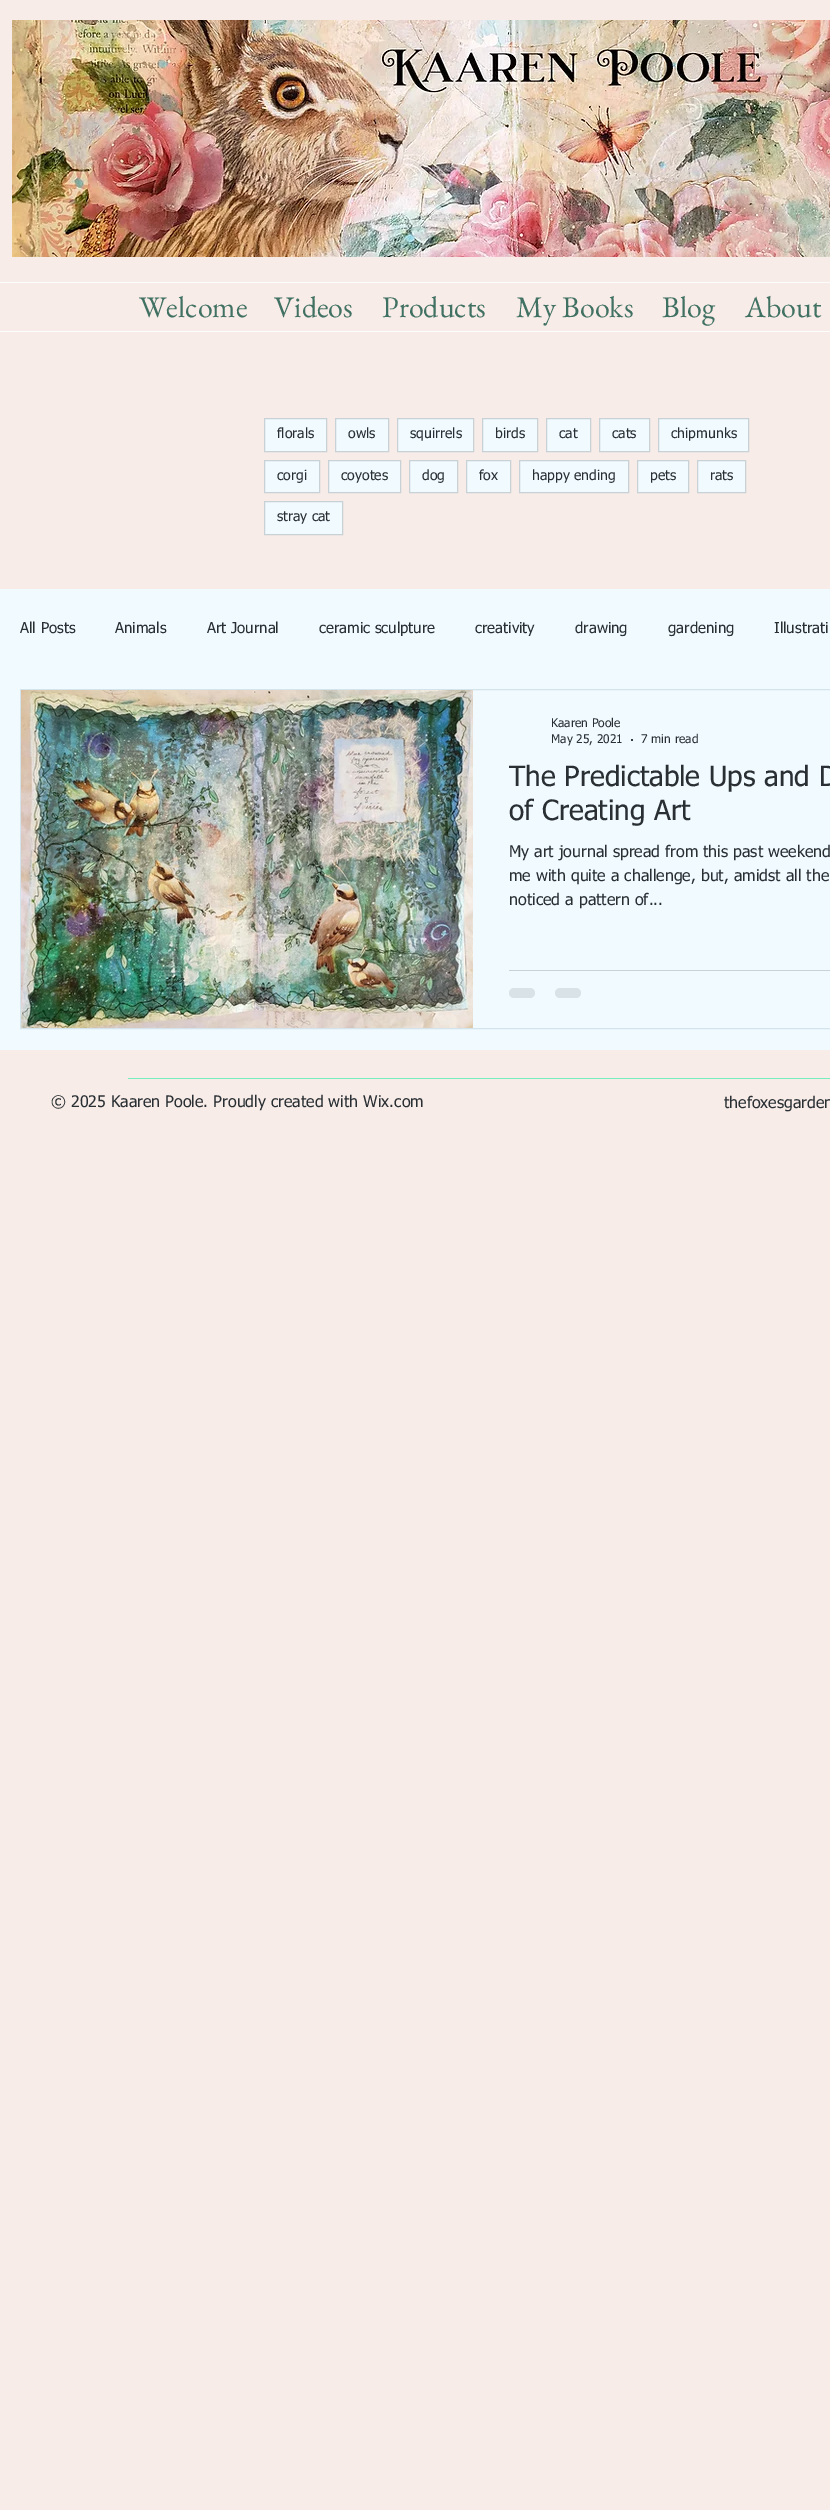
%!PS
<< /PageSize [830 2510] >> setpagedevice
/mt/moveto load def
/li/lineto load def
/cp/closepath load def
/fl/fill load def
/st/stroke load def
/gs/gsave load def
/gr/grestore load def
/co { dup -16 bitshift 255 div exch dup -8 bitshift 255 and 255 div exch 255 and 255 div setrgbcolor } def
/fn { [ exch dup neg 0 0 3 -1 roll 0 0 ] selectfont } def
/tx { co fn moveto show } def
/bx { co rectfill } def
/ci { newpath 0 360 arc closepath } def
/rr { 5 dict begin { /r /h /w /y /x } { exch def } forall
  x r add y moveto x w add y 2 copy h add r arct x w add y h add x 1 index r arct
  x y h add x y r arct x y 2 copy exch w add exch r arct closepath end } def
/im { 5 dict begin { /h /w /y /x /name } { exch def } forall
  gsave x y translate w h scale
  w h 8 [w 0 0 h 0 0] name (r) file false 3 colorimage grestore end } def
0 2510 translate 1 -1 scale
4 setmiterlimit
0 0 830 2510 16#F7ECE8 bx
(media/1.raw) 12 20 818 237 im
0 282 830 1 16#FEFDFD bx
0 331 830 1 16#FEFDFD bx
16#F0FAFF co
264.5 418.5 mt 326.5 418.5 li 326.5 451.5 li 264.5 451.5 li cp gs fl gr
16#C8D1D6 co
st
16#F0FAFF co
335.5 418.5 mt 388.5 418.5 li 388.5 451.5 li 335.5 451.5 li cp gs fl gr
16#C8D1D6 co
st
16#F0FAFF co
397.5 418.5 mt 473.5 418.5 li 473.5 451.5 li 397.5 451.5 li cp gs fl gr
16#C8D1D6 co
st
16#F0FAFF co
482.5 418.5 mt 537.5 418.5 li 537.5 451.5 li 482.5 451.5 li cp gs fl gr
16#C8D1D6 co
st
16#F0FAFF co
546.5 418.5 mt 590.5 418.5 li 590.5 451.5 li 546.5 451.5 li cp gs fl gr
16#C8D1D6 co
st
16#F0FAFF co
599.5 418.5 mt 649.5 418.5 li 649.5 451.5 li 599.5 451.5 li cp gs fl gr
16#C8D1D6 co
st
16#F0FAFF co
658.5 418.5 mt 748.5 418.5 li 748.5 451.5 li 658.5 451.5 li cp gs fl gr
16#C8D1D6 co
st
16#F0FAFF co
264.5 460.5 mt 319.5 460.5 li 319.5 492.5 li 264.5 492.5 li cp gs fl gr
16#C8D1D6 co
st
16#F0FAFF co
328.5 460.5 mt 400.5 460.5 li 400.5 492.5 li 328.5 492.5 li cp gs fl gr
16#C8D1D6 co
st
16#F0FAFF co
409.5 460.5 mt 457.5 460.5 li 457.5 492.5 li 409.5 492.5 li cp gs fl gr
16#C8D1D6 co
st
16#F0FAFF co
466.5 460.5 mt 510.5 460.5 li 510.5 492.5 li 466.5 492.5 li cp gs fl gr
16#C8D1D6 co
st
16#F0FAFF co
519.5 460.5 mt 628.5 460.5 li 628.5 492.5 li 519.5 492.5 li cp gs fl gr
16#C8D1D6 co
st
16#F0FAFF co
637.5 460.5 mt 688.5 460.5 li 688.5 492.5 li 637.5 492.5 li cp gs fl gr
16#C8D1D6 co
st
16#F0FAFF co
697.5 460.5 mt 745.5 460.5 li 745.5 492.5 li 697.5 492.5 li cp gs fl gr
16#C8D1D6 co
st
16#F0FAFF co
264.5 501.5 mt 342.5 501.5 li 342.5 534.5 li 264.5 534.5 li cp gs fl gr
16#C8D1D6 co
st
0 589 830 461 16#F0FAFF bx
16#D4E4EC co
20.5 689.5 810 339 rectstroke
(media/2.raw) 21 690 452 338 im
16#292F33 co
632 740 1 ci fl
509 970 321 1 16#C8D1D6 bx
16#D8E2E7 co
509 988 26 10 5 rr fl
555 988 26 10 5 rr fl
128 1078 702 1 16#77EEBE bx
(Welcome) 139 317 /EBGaramond-Regular 30 16#417162 tx
(Videos) 274 317 /EBGaramond-Regular 30 16#417162 tx
(Products) 382 317 /EBGaramond-Regular 30 16#417162 tx
(My Books) 516 317 /EBGaramond-Regular 30 16#417162 tx
(Blog) 662 317 /EBGaramond-Regular 30 16#417162 tx
(About) 745 317 /EBGaramond-Regular 30 16#417162 tx
(florals) 277 438 /tahoma-Regular 14 16#292F33 tx
(owls) 348 438 /tahoma-Regular 14 16#292F33 tx
(squirrels) 410 438 /tahoma-Regular 14 16#292F33 tx
(birds) 495 438 /tahoma-Regular 14 16#292F33 tx
(cat) 559 438 /tahoma-Regular 14 16#292F33 tx
(cats) 612 438 /tahoma-Regular 14 16#292F33 tx
(chipmunks) 671 438 /tahoma-Regular 14 16#292F33 tx
(corgi) 277 480 /tahoma-Regular 14 16#292F33 tx
(coyotes) 341 480 /tahoma-Regular 14 16#292F33 tx
(dog) 422 480 /tahoma-Regular 14 16#292F33 tx
(fox) 479 480 /tahoma-Regular 14 16#292F33 tx
(happy ending) 532 480 /tahoma-Regular 14 16#292F33 tx
(pets) 650 480 /tahoma-Regular 14 16#292F33 tx
(rats) 710 480 /tahoma-Regular 14 16#292F33 tx
(stray cat) 277 521 /tahoma-Regular 14 16#292F33 tx
(All Posts) 20 633 /tahoma-Regular 15 16#292F33 tx
(Animals) 115 633 /tahoma-Regular 15 16#292F33 tx
(Art Journal) 207 633 /tahoma-Regular 15 16#292F33 tx
(ceramic sculpture) 319 633 /tahoma-Regular 15 16#292F33 tx
(creativity) 475 633 /tahoma-Regular 15 16#292F33 tx
(drawing) 575 633 /tahoma-Regular 15 16#292F33 tx
(gardening) 668 633 /tahoma-Regular 15 16#292F33 tx
(Illustrati) 774 633 /tahoma-Regular 15 16#292F33 tx
(Kaaren Poole) 551 727 /tahoma-Regular 12 16#292F33 tx
(May 25, 2021) 551 743 /tahoma-Regular 12 16#292F33 tx
(7 min read) 641 743 /tahoma-Regular 12 16#292F33 tx
(The Predictable Ups and D) 509 786 /tahoma-Regular 28 16#292F33 tx
(of Creating Art) 509 820 /tahoma-Regular 28 16#292F33 tx
(My art journal spread from this past weekend) 509 857 /tahoma-Regular 16 16#292F33 tx
(me with quite a challenge, but, amidst all the) 509 881 /tahoma-Regular 16 16#292F33 tx
(noticed a pattern of...) 509 905 /tahoma-Regular 16 16#292F33 tx
(© 2025 Kaaren Poole. Proudly created with Wix.com) 51 1107 /tahoma-Regular 16 16#292F33 tx
(thefoxesgarden) 724 1108 /tahoma-Regular 16 16#292F33 tx
showpage
